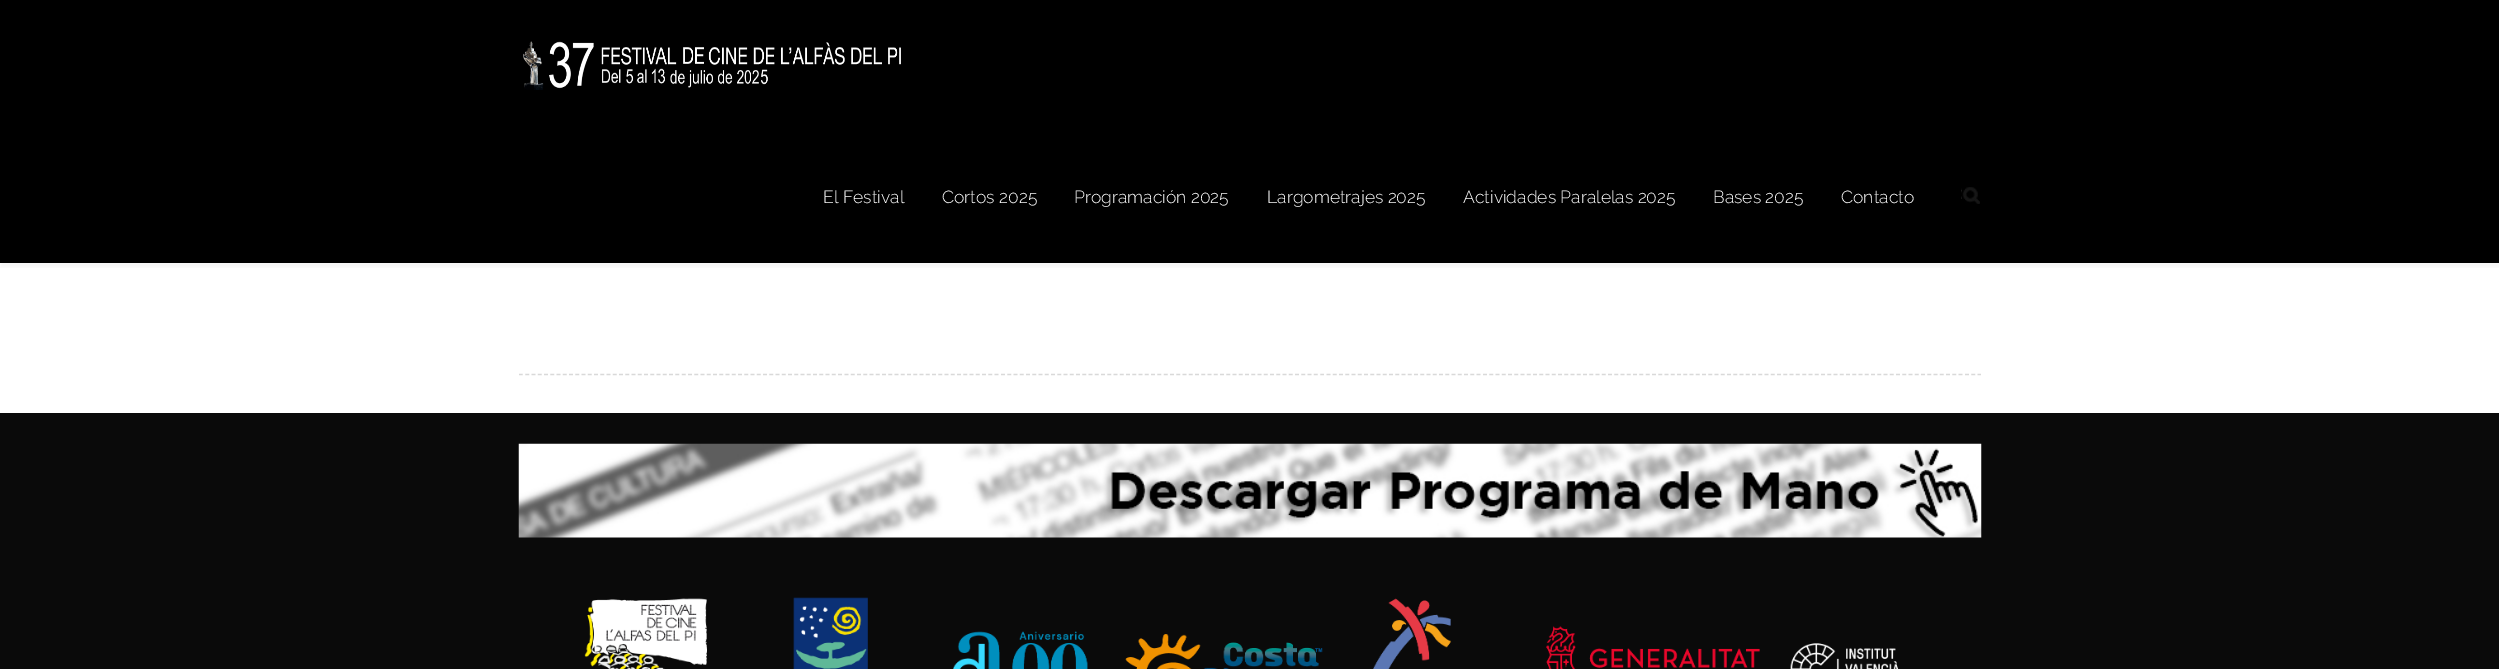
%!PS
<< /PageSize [2499 669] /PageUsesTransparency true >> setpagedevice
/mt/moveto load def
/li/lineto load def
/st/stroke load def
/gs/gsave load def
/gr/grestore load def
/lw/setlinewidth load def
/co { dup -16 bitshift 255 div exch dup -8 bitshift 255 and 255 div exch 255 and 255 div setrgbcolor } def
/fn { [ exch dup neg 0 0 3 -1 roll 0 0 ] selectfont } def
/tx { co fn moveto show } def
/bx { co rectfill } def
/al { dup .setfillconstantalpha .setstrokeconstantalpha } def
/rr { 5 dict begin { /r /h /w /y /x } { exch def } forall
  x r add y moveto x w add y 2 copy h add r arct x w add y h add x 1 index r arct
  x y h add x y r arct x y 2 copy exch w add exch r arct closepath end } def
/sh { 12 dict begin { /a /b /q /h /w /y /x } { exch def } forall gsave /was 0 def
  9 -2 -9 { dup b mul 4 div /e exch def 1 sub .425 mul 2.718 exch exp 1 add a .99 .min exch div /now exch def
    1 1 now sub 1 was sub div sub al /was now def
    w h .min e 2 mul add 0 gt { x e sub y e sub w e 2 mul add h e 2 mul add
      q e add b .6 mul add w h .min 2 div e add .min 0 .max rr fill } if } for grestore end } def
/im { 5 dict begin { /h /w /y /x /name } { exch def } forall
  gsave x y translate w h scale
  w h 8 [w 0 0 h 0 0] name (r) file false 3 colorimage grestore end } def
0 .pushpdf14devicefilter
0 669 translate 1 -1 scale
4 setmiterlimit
0 0 2499 669 16#FFFFFF bx
0 0 2499 263 16#000000 bx
(media/1.raw) 523 41 378 49 im
(media/2.raw) 1961 187 19 17 im
(media/3.raw) 1963 187 17 17 im
gs
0 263 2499 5 rectclip
0 258 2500 10 0 2 .04 sh
gr
16#D9D9D9 co
1.2 lw
[3.75 2.51] 0 setdash
519 374.5 mt 1981 374.5 li st
0 413 2499 256 16#0A0A0A bx
(media/4.raw) 518 443 1464 95 im
(media/5.raw) 584 597 1315 72 im
(El Festival) 823 203 /Raleway-Light 17.5 16#FFFFFF tx
(Cortos 2025) 942 203 /Raleway-Light 17.5 16#FFFFFF tx
(Programación 2025) 1074 203 /Raleway-Light 17.5 16#FFFFFF tx
(Largometrajes 2025) 1267 203 /Raleway-Light 17.5 16#FFFFFF tx
(Actividades Paralelas 2025) 1463 203 /Raleway-Light 17.5 16#FFFFFF tx
(Bases 2025) 1713 203 /Raleway-Light 17.5 16#FFFFFF tx
(Contacto) 1841 203 /Raleway-Light 17.5 16#FFFFFF tx
.poppdf14devicefilter showpage
